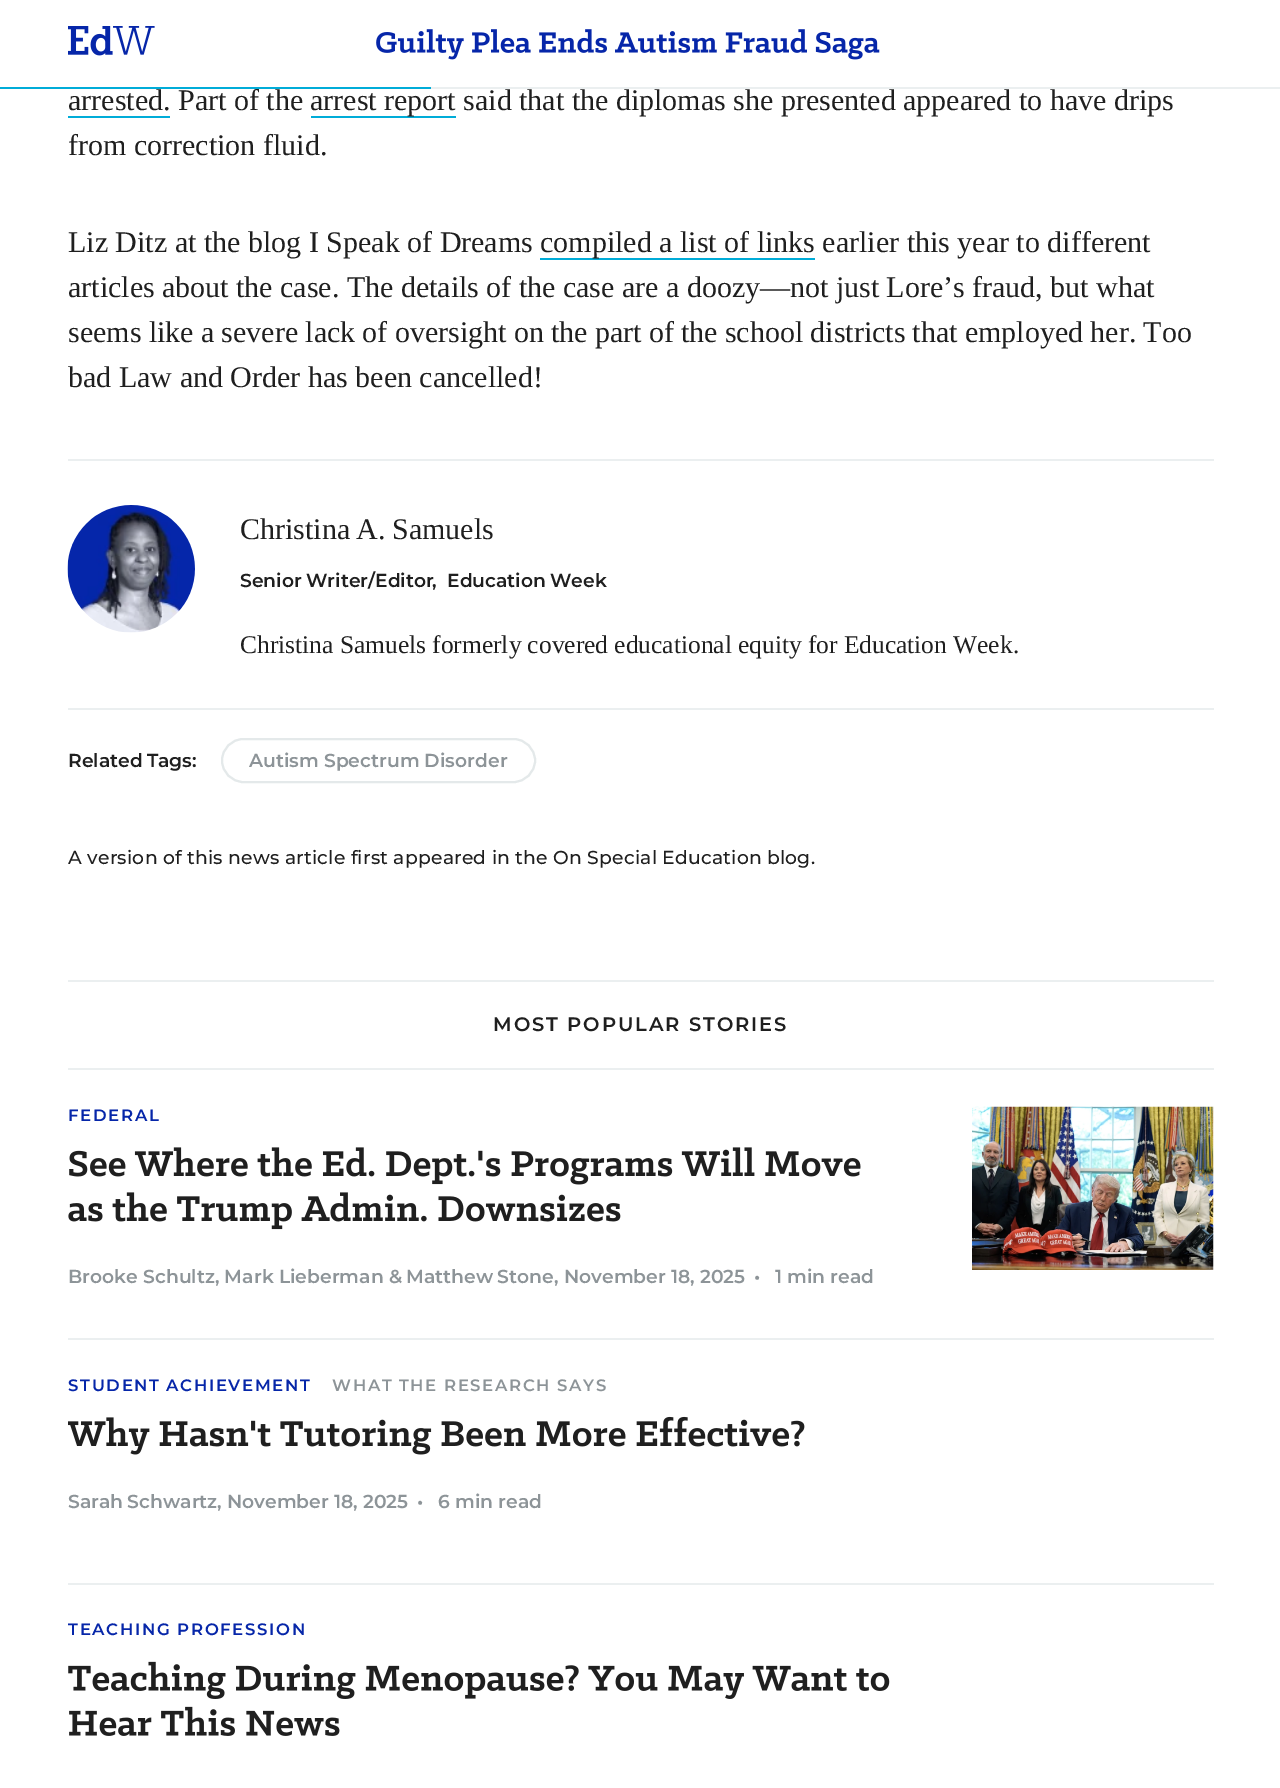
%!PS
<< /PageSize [1280 1788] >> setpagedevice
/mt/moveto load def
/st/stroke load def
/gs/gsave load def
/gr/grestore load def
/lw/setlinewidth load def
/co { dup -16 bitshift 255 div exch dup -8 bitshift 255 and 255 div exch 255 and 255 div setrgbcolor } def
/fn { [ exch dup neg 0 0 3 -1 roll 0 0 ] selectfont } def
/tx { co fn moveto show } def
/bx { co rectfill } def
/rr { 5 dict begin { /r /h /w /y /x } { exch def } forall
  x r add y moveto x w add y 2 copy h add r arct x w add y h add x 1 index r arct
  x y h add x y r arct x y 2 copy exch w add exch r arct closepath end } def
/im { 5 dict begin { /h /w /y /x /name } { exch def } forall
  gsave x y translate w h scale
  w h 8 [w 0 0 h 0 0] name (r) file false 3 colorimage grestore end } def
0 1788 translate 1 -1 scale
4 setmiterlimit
0 0 1280 1788 16#FFFFFF bx
431 87 849 2 16#EBEFF0 bx
(media/1.raw) 68 26 87 30 im
(media/2.raw) 376 29 504 31 im
68 116 102 2 16#00ACD8 bx
311 116 145 2 16#00ACD8 bx
540 258 275 2 16#00ACD8 bx
68 459 1146 2 16#EBEFF0 bx
(media/3.raw) 67 505 128 128 im
68 708 1146 2 16#EBEFF0 bx
16#E4E9EA co
2 lw
222 739 313 43 21.5 rr st
68 980 1146 2 16#EBEFF0 bx
68 1068 1146 2 16#EBEFF0 bx
68 1338 1146 2 16#EBEFF0 bx
(media/4.raw) 69 1147 792 38 im
(media/5.raw) 68 1192 553 38 im
(media/6.raw) 972 1106 242 164 im
68 1583 1146 2 16#EBEFF0 bx
(media/7.raw) 68 1416 737 39 im
(media/8.raw) 68 1661 822 38 im
(media/9.raw) 69 1706 271 30 im
(arrested. Part of the) 68 110 /LiberationSerif-Regular 30 16#1F1F1F tx
0 87 431 2 16#00ACD8 bx
(arrest report said that the diplomas she presented appeared to have drips) 310 110 /LiberationSerif-Regular 30 16#1F1F1F tx
(from correction fluid.) 68 155 /LiberationSerif-Regular 30 16#1F1F1F tx
(Liz Ditz at the blog I Speak of Dreams) 68 252 /LiberationSerif-Regular 30 16#1F1F1F tx
(compiled a list of links earlier this year to different) 540 252 /LiberationSerif-Regular 30 16#1F1F1F tx
68 297 mt -.1 0 32 (articles about the case. The details of the case are a doozy—not just Lore’s fraud, but what) widthshow
68 342 mt -.25 0 32 (seems like a severe lack of oversight on the part of the school districts that employed her. Too) widthshow
(bad Law and Order has been cancelled!) 68 387 /LiberationSerif-Regular 30 16#1F1F1F tx
240 539 mt -1 0 32 (Christina A. Samuels) widthshow
/Montserrat-SemiBold 18.75 fn
240 587 mt -1 0 32 (Senior Writer/Editor) widthshow
(,) 432 587 /Montserrat-SemiBold 18.75 16#1F1F1F tx
447 587 mt -1 0 32 (Education Week) widthshow
/LiberationSerif-Regular 25.5 fn
240 653 mt -.25 0 32 (Christina Samuels formerly covered educational equity for Education Week.) widthshow
/Montserrat-SemiBold 18.75 fn
68 767 mt -1 0 32 (Related Tags:) widthshow
(Autism Spectrum Disorder) 249 767 /Montserrat-SemiBold 18.75 16#8D9498 tx
/Montserrat-Medium 18.75 fn
16#1F1F1F co
68 864 mt .2 0 (A version of this news article first appeared in the On Special Education blog.) ashow
/Montserrat-SemiBold 19.5 fn
493 1031 mt 1.95 0 (MOST POPULAR STORIES) ashow
/Montserrat-SemiBold 16.5 fn
16#0626A9 co
68 1121 mt 1.65 0 (FEDERAL) ashow
(Brooke Schultz, Mark Lieberman &) 68 1283 /Montserrat-SemiBold 18.75 16#8D9498 tx
406 1283 mt -1 0 32 (Matthew Stone) widthshow
(, November 18, 2025) 554 1283 /Montserrat-SemiBold 18.75 16#8D9498 tx
(•) 754 1283 /Montserrat-SemiBold 18.75 16#8D9498 tx
(1 min read) 775 1283 /Montserrat-SemiBold 18.75 16#8D9498 tx
/Montserrat-SemiBold 16.5 fn
16#0626A9 co
68 1391 mt -1 0 32 1.65 0 (STUDENT ACHIEVEMENT) awidthshow
16#8D9498 co
332 1391 mt -.5 0 32 1.65 0 (WHAT THE RESEARCH SAYS) awidthshow
/Montserrat-SemiBold 18.75 fn
68 1508 mt -1 0 32 (Sarah Schwartz) widthshow
(, November 18, 2025) 217 1508 /Montserrat-SemiBold 18.75 16#8D9498 tx
(•) 417 1508 /Montserrat-SemiBold 18.75 16#8D9498 tx
(6 min read) 438 1508 /Montserrat-SemiBold 18.75 16#8D9498 tx
gs
68 1584 1146 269 rectclip
/Montserrat-SemiBold 16.5 fn
16#0626A9 co
68 1635 mt 1.65 0 (TEACHING PROFESSION) ashow
gr
showpage
